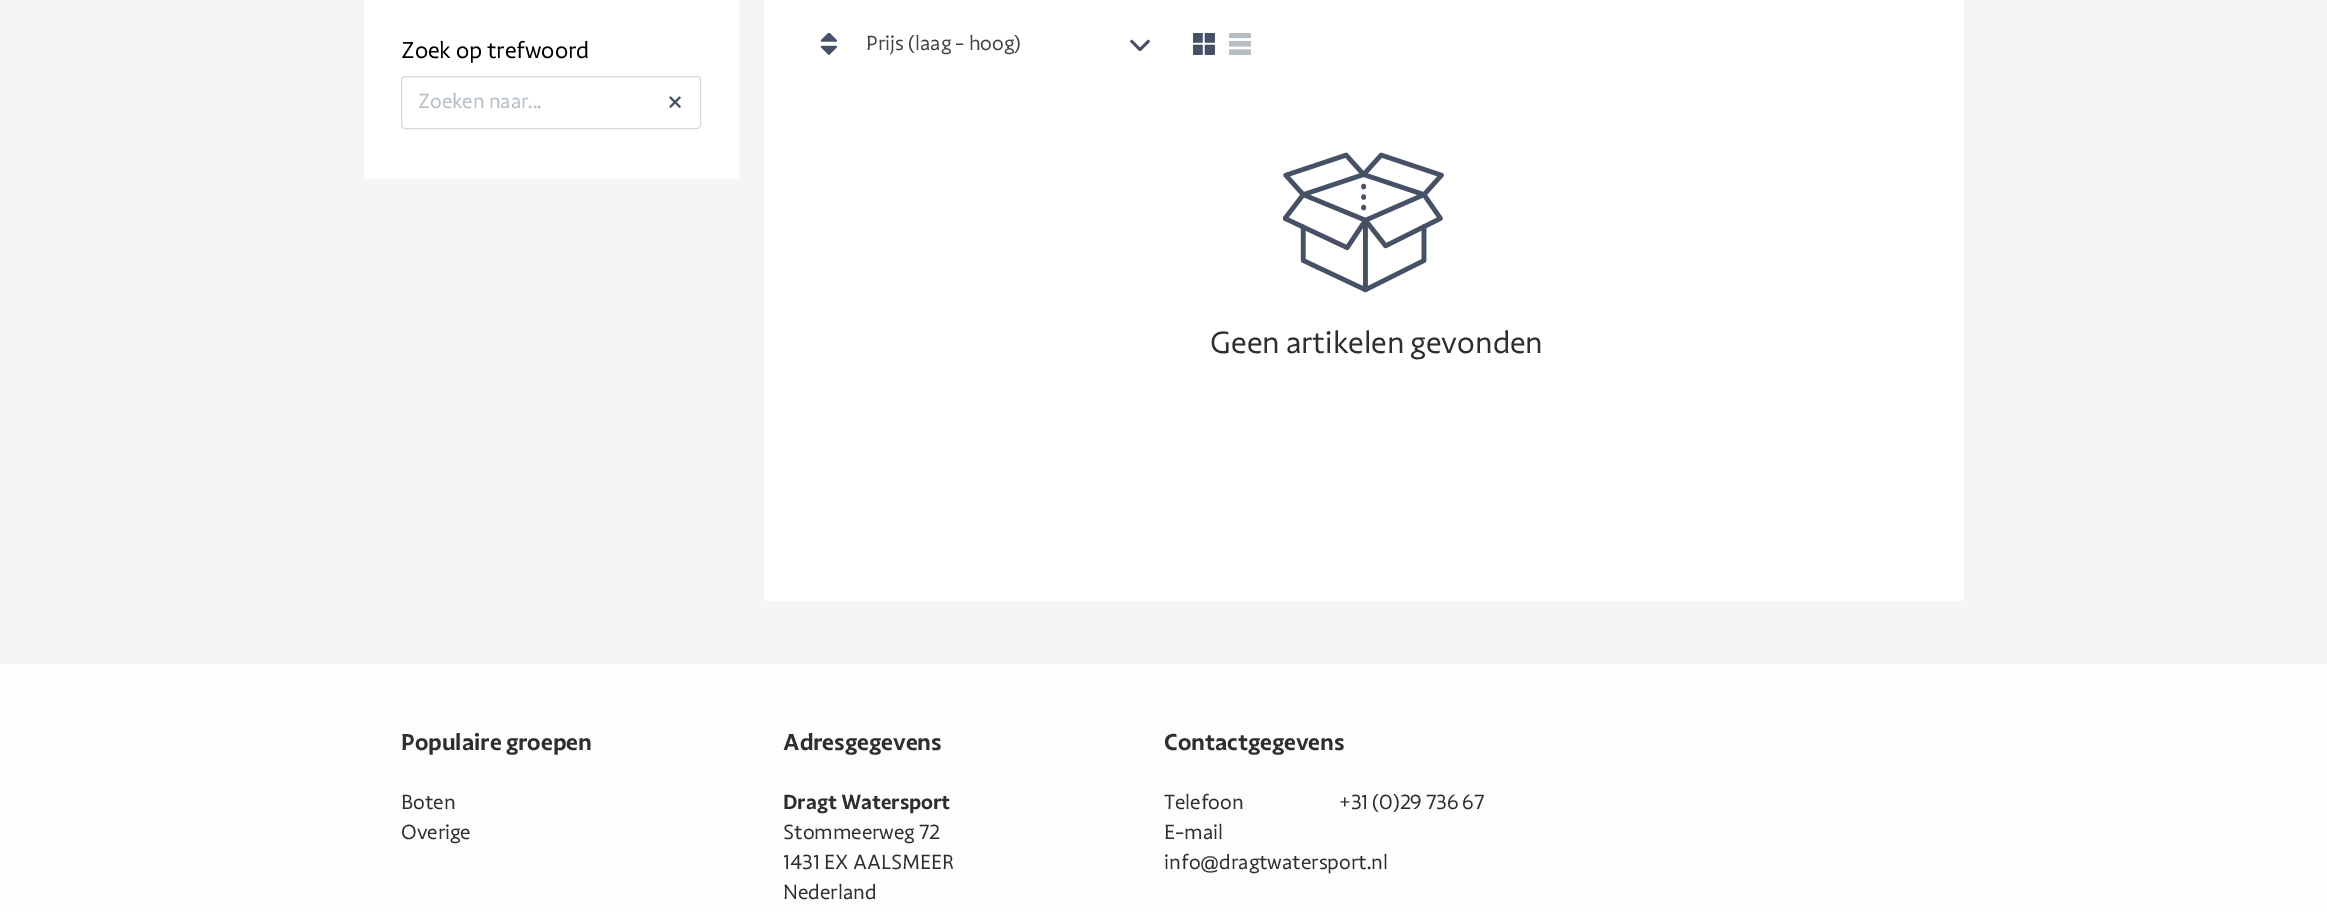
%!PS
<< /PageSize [2327 912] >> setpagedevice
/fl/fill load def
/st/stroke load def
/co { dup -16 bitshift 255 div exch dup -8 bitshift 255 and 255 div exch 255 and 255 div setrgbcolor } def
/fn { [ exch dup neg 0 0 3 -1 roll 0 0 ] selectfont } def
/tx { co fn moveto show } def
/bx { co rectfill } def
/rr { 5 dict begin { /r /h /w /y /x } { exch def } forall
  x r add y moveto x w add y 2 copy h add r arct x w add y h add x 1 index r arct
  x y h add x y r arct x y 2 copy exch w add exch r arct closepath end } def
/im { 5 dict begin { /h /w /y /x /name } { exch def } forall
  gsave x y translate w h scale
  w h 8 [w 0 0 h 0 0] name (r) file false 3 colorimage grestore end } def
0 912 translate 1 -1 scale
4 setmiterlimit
0 0 2327 912 16#F5F5F5 bx
16#FFFFFF co
364 -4 375 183 4 rr fl
16#D9D9D9 co
401.5 76.5 299 52 3.5 rr st
(media/1.raw) 669 96 12 12 im
16#FFFFFF co
764 -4 1200 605 4 rr fl
(media/2.raw) 820 33 18 22 im
(media/3.raw) 1130 39 20 12 im
(media/4.raw) 1193 33 22 22 im
(media/5.raw) 1229 33 22 22 im
(media/6.raw) 1283 152 161 141 im
0 664 2327 248 16#FDFDFD bx
(Zoek op trefwoord) 401 58 /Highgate-Regular 22.5 16#000000 tx
(Zoeken naar...) 418 108 /Highgate-Regular 20 16#B5BDC4 tx
(Prijs \(laag - hoog\)) 866 50 /Highgate-Regular 20 16#444444 tx
(Geen artikelen gevonden) 1210 353 /Highgate-Regular 30 16#2E2E2E tx
(Populaire groepen) 401 750 /Highgate-Bold 22.5 16#2E2E2E tx
(Boten) 401 809 /Highgate-Regular 20 16#2E2E2E tx
(Overige) 401 839 /Highgate-Regular 20 16#2E2E2E tx
(Adresgegevens) 783 750 /Highgate-Bold 22.5 16#2E2E2E tx
(Dragt Watersport) 783 809 /Highgate-Bold 20 16#2E2E2E tx
(Stommeerweg 72) 783 839 /Highgate-Regular 20 16#2E2E2E tx
(1431 EX AALSMEER) 783 869 /Highgate-Regular 20 16#2E2E2E tx
(Nederland) 783 899 /Highgate-Regular 20 16#2E2E2E tx
(Contactgegevens) 1164 750 /Highgate-Bold 22.5 16#2E2E2E tx
(Telefoon) 1164 809 /Highgate-Regular 20 16#2E2E2E tx
(+31 \(0\)29 736 67) 1339 809 /Highgate-Regular 20 16#2E2E2E tx
(E-mail) 1164 839 /Highgate-Regular 20 16#2E2E2E tx
(info@dragtwatersport.nl) 1164 869 /Highgate-Regular 20 16#2E2E2E tx
showpage
